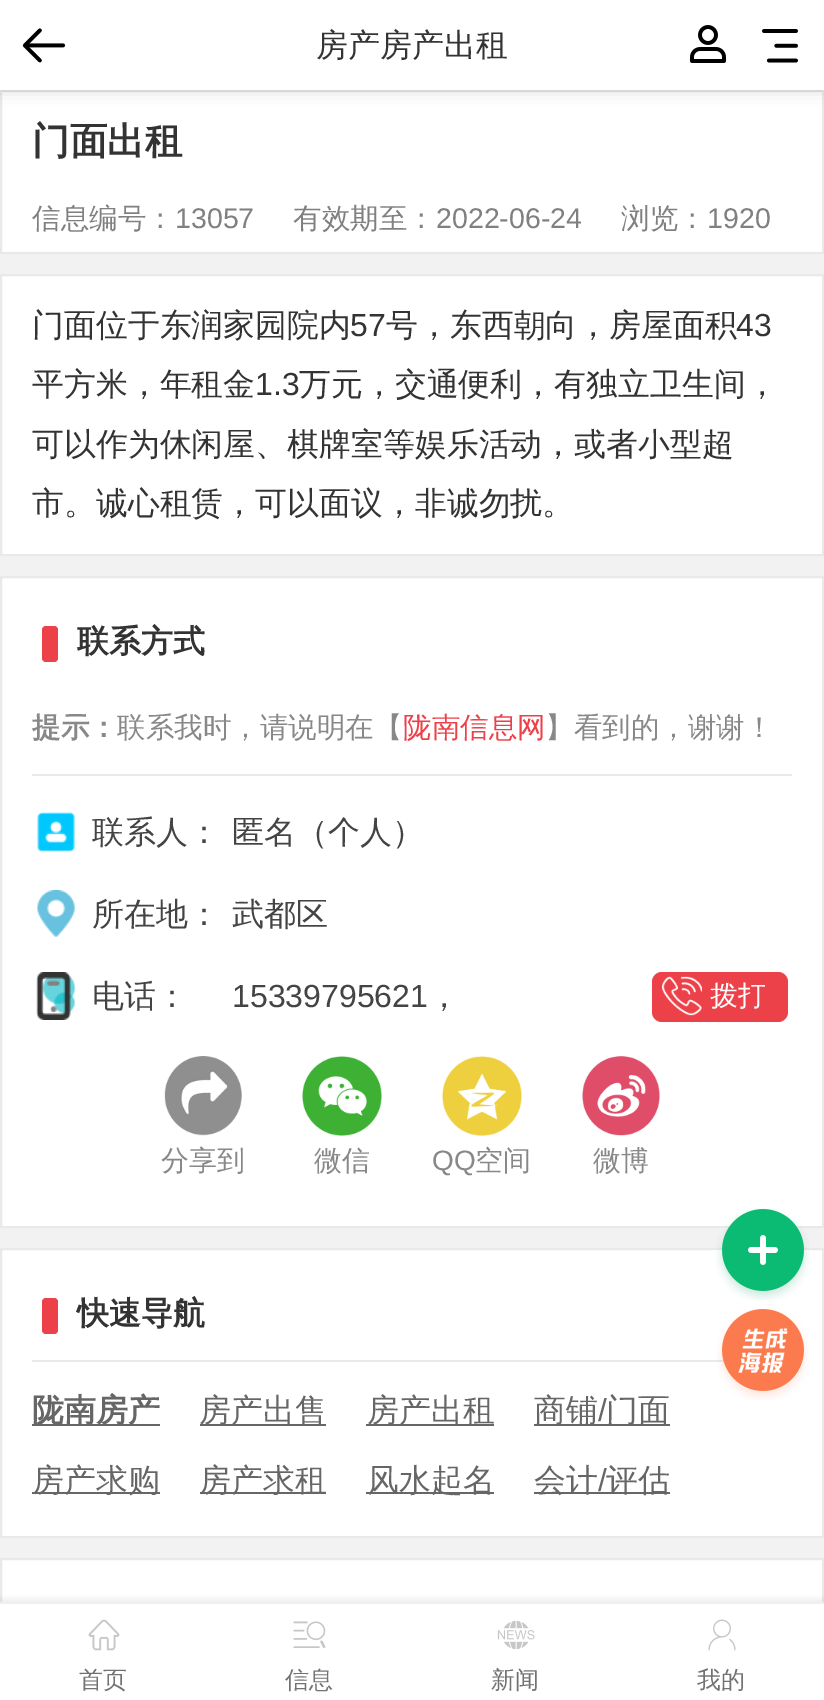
%!PS
<< /PageSize [824 1700] /PageUsesTransparency true >> setpagedevice
/mt/moveto load def
/li/lineto load def
/cp/closepath load def
/fl/fill load def
/st/stroke load def
/gs/gsave load def
/gr/grestore load def
/lw/setlinewidth load def
/co { dup -16 bitshift 255 div exch dup -8 bitshift 255 and 255 div exch 255 and 255 div setrgbcolor } def
/fn { [ exch dup neg 0 0 3 -1 roll 0 0 ] selectfont } def
/tx { co fn moveto show } def
/bx { co rectfill } def
/al { dup .setfillconstantalpha .setstrokeconstantalpha } def
/rr { 5 dict begin { /r /h /w /y /x } { exch def } forall
  x r add y moveto x w add y 2 copy h add r arct x w add y h add x 1 index r arct
  x y h add x y r arct x y 2 copy exch w add exch r arct closepath end } def
/sh { 12 dict begin { /a /b /q /h /w /y /x } { exch def } forall gsave /was 0 def
  9 -2 -9 { dup b mul 4 div /e exch def 1 sub .425 mul 2.718 exch exp 1 add a .99 .min exch div /now exch def
    1 1 now sub 1 was sub div sub al /was now def
    w h .min e 2 mul add 0 gt { x e sub y e sub w e 2 mul add h e 2 mul add
      q e add b .6 mul add w h .min 2 div e add .min 0 .max rr fill } if } for grestore end } def
/im { 5 dict begin { /h /w /y /x /name } { exch def } forall
  gsave x y translate w h scale
  w h 8 [w 0 0 h 0 0] name (r) file false 3 colorimage grestore end } def
0 .pushpdf14devicefilter
0 1700 translate 1 -1 scale
4 setmiterlimit
0 0 824 1700 16#F2F2F2 bx
16#FFFFFF co
1 91 mt 823 91 li 823 253 li 1 253 li cp gs fl gr
16#E9E9E9 co
2 lw
st
16#000000 co
0 0 824 90 0 8 .15 sh
0 0 824 90 16#FFFFFF bx
(media/1.raw) 22 28 44 35 im
(media/2.raw) 690 25 36 38 im
(media/3.raw) 762 29 36 34 im
1 275 mt 823 275 li 823 555 li 1 555 li cp gs fl gr
16#E9E9E9 co
st
16#FFFFFF co
1 577 mt 823 577 li 823 1227 li 1 1227 li cp gs fl gr
16#E9E9E9 co
st
32 774 760 2 16#E9E9E9 bx
16#ED414A co
42 626 16 36 4 rr fl
(media/4.raw) 37 812 38 40 im
(media/5.raw) 37 890 38 47 im
(media/6.raw) 36 972 40 48 im
652 972 136 50 10 rr fl
(media/7.raw) 662 976 40 40 im
(media/8.raw) 164 1056 78 80 im
(media/9.raw) 302 1056 80 80 im
(media/10.raw) 442 1056 80 80 im
(media/11.raw) 582 1056 78 80 im
16#FFFFFF co
1 1249 mt 823 1249 li 823 1537 li 1 1537 li cp gs fl gr
16#E9E9E9 co
st
32 1360 692 2 16#E9E9E9 bx
16#ED414A co
42 1298 16 36 4 rr fl
32 1424 128 2 16#666666 bx
200 1424 126 2 16#666666 bx
366 1424 128 2 16#666666 bx
534 1424 136 2 16#666666 bx
32 1492 128 2 16#666666 bx
200 1492 126 2 16#666666 bx
366 1492 128 2 16#666666 bx
534 1492 136 2 16#666666 bx
(media/12.raw) 716 1208 94 92 im
(media/13.raw) 717 1309 92 91 im
2 1560 820 42 16#FFFFFF bx
16#E9E9E9 co
1 1559 822 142 rectstroke
16#000000 co
0 1598 824 98 0 2 .05 sh
0 1604 824 96 16#FFFFFF bx
0 1602 824 2 16#F0EFED bx
(media/14.raw) 88 1619 32 32 im
(media/15.raw) 293 1621 33 27 im
(media/16.raw) 497 1621 38 28 im
(media/17.raw) 708 1619 28 32 im
(房产房产出租) 316 56 /WenQuanYiZenHei-Medium 32 16#333333 tx
(门面出租) 32 154 /WenQuanYiZenHei-Bold 37.5 16#333333 tx
(信息编号：) 32 228 /WenQuanYiZenHei-Medium 28.5 16#808080 tx
(13057) 175 228 /LiberationSans-Regular 28.5 16#808080 tx
(有效期至：) 293 228 /WenQuanYiZenHei-Medium 28.5 16#808080 tx
(2022-06-24) 436 228 /LiberationSans-Regular 28.5 16#808080 tx
(浏览：) 621 228 /WenQuanYiZenHei-Medium 28.5 16#808080 tx
(1920) 707 228 /LiberationSans-Regular 28.5 16#808080 tx
(门面位于东润家园院内) 32 336 /WenQuanYiZenHei-Medium 31.9 16#333333 tx
(57) 350 336 /LiberationSans-Regular 31.9 16#333333 tx
(号，东西朝向，房屋面积) 386 336 /WenQuanYiZenHei-Medium 31.9 16#333333 tx
(43) 736 336 /LiberationSans-Regular 31.9 16#333333 tx
(平方米，年租金) 32 395 /WenQuanYiZenHei-Medium 31.9 16#333333 tx
(1.3) 255 395 /LiberationSans-Regular 31.9 16#333333 tx
(万元，交通便利，有独立卫生间，) 299 395 /WenQuanYiZenHei-Medium 31.9 16#333333 tx
(可以作为休闲屋、棋牌室等娱乐活动，或者小型超) 32 455 /WenQuanYiZenHei-Medium 31.9 16#333333 tx
(市。诚心租赁，可以面议，非诚勿扰。) 32 514 /WenQuanYiZenHei-Medium 31.9 16#333333 tx
(联系方式) 77 652 /WenQuanYiZenHei-Bold 31.9 16#333333 tx
(提示：) 32 737 /WenQuanYiZenHei-Bold 28.5 16#888888 tx
(联系我时，请说明在【) 117 737 /WenQuanYiZenHei-Medium 28.5 16#888888 tx
(陇南信息网) 403 737 /WenQuanYiZenHei-Medium 28.5 16#ED414A tx
(】看到的，谢谢！) 545 737 /WenQuanYiZenHei-Medium 28.5 16#888888 tx
(联系人：) 92 843 /WenQuanYiZenHei-Medium 32 16#444444 tx
(匿名（个人）) 232 843 /WenQuanYiZenHei-Medium 32 16#444444 tx
(所在地：) 92 925 /WenQuanYiZenHei-Medium 32 16#444444 tx
(武都区) 232 925 /WenQuanYiZenHei-Medium 32 16#444444 tx
(电话：) 92 1007 /WenQuanYiZenHei-Medium 32 16#444444 tx
(15339795621) 232 1007 /LiberationSans-Regular 32 16#444444 tx
(，) 428 1007 /WenQuanYiZenHei-Medium 32 16#444444 tx
(拨打) 710 1005 /WenQuanYiZenHei-Medium 28 16#FFFFFF tx
(分享到) 161 1170 /WenQuanYiZenHei-Medium 28 16#888888 tx
(微信) 314 1170 /WenQuanYiZenHei-Medium 28 16#888888 tx
(QQ) 432 1170 /LiberationSans-Regular 28 16#888888 tx
(空间) 475 1170 /WenQuanYiZenHei-Medium 28 16#888888 tx
(微博) 593 1170 /WenQuanYiZenHei-Medium 28 16#888888 tx
(快速导航) 77 1324 /WenQuanYiZenHei-Bold 31.9 16#333333 tx
(陇南房产) 32 1421 /WenQuanYiZenHei-Bold 31.9 16#666666 tx
(房产出售) 199 1421 /WenQuanYiZenHei-Medium 31.9 16#666666 tx
(房产出租) 367 1421 /WenQuanYiZenHei-Medium 31.9 16#666666 tx
(商铺) 534 1421 /WenQuanYiZenHei-Medium 31.9 16#666666 tx
(/) 598 1421 /LiberationSans-Regular 31.9 16#666666 tx
(门面) 606 1421 /WenQuanYiZenHei-Medium 31.9 16#666666 tx
(房产求购) 32 1491 /WenQuanYiZenHei-Medium 31.9 16#666666 tx
(房产求租) 199 1491 /WenQuanYiZenHei-Medium 31.9 16#666666 tx
(风水起名) 367 1491 /WenQuanYiZenHei-Medium 31.9 16#666666 tx
(会计) 534 1491 /WenQuanYiZenHei-Medium 31.9 16#666666 tx
(/) 598 1491 /LiberationSans-Regular 31.9 16#666666 tx
(评估) 606 1491 /WenQuanYiZenHei-Medium 31.9 16#666666 tx
(首页) 79 1688 /WenQuanYiZenHei-Medium 24 16#727272 tx
(信息) 285 1688 /WenQuanYiZenHei-Medium 24 16#727272 tx
(新闻) 491 1688 /WenQuanYiZenHei-Medium 24 16#727272 tx
(我的) 697 1688 /WenQuanYiZenHei-Medium 24 16#727272 tx
.poppdf14devicefilter showpage
